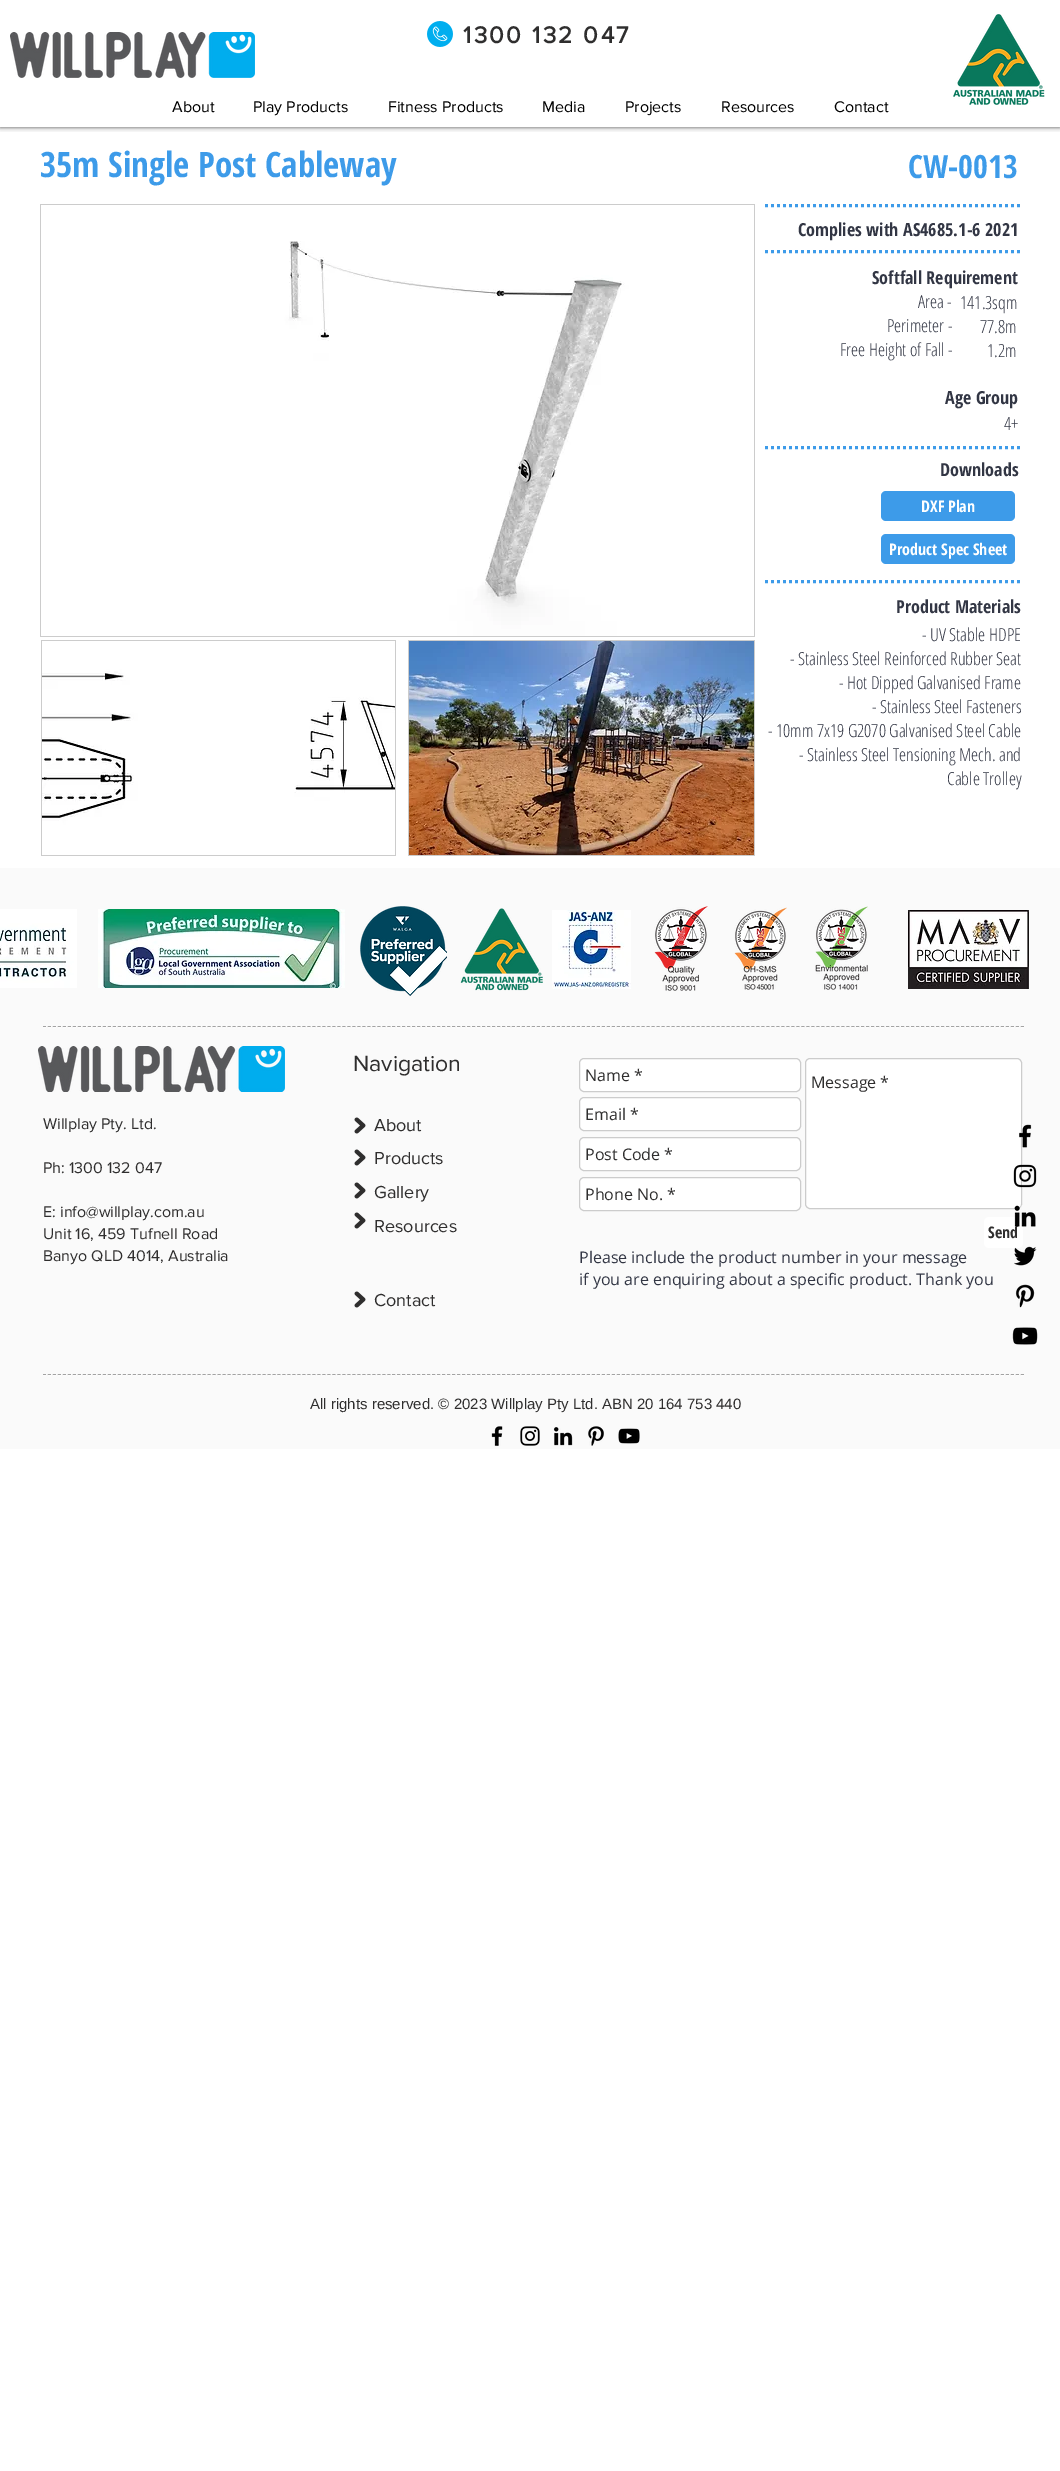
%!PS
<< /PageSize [1060 2471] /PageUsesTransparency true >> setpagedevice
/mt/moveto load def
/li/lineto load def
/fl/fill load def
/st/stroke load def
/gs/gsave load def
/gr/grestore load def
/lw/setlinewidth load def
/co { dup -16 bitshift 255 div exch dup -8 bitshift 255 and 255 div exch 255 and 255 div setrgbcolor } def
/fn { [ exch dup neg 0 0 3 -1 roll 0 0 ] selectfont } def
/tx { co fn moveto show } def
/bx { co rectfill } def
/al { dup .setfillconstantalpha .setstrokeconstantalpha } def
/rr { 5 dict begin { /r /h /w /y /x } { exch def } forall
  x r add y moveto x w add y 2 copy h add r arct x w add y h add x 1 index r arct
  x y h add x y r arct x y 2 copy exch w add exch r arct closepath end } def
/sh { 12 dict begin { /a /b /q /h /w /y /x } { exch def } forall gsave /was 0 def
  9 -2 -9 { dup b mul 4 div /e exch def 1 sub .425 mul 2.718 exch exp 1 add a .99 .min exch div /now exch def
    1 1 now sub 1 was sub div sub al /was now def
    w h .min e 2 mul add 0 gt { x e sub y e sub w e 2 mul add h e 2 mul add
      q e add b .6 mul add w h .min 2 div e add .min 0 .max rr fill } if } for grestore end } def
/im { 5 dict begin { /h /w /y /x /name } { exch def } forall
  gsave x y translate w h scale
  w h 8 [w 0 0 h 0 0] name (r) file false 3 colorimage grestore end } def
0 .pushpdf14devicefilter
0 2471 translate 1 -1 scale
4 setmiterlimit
0 0 1060 2471 16#FFFFFF bx
gs
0 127 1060 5 rectclip
16#000000 co
0 0 1060 127 0 2.5 .7 sh
gr
(media/1.raw) 10 32 245 46 im
(media/2.raw) 427 21 26 26 im
(media/3.raw) 953 14 92 91 im
40 204 715 433 16#CCCCCC bx
(media/4.raw) 41 205 713 431 im
16#3D9BE9 co
3 lw
[3 3] 0 setdash
765 205.5 mt 1020 205.5 li st
765 251.5 mt 1020 251.5 li st
765 447.5 mt 1020 447.5 li st
765 581.5 mt 1020 581.5 li st
881 491 134 30 5 rr fl
881 534 134 30 5 rr fl
41 640 355 216 16#CCCCCC bx
(media/5.raw) 42 641 353 214 im
408 640 347 216 16#CCCCCC bx
(media/6.raw) 409 641 345 214 im
0 868 1060 581 16#FAFAFA bx
(media/7.raw) 0 909 77 79 im
(media/8.raw) 98 909 247 79 im
(media/9.raw) 360 906 87 90 im
(media/10.raw) 460 908 83 83 im
(media/11.raw) 552 910 79 79 im
(media/12.raw) 654 906 54 85 im
(media/13.raw) 734 907 53 83 im
(media/14.raw) 815 906 53 84 im
(media/15.raw) 908 910 121 79 im
16#A3A3A3 co
1 lw
[3 1.99] 0 setdash
43 1026.5 mt 1024 1026.5 li st
16#FDFDFD co
43 1027.5 mt 1024 1027.5 li st
(media/16.raw) 38 1046 247 46 im
(media/17.raw) 354 1117 12 17 im
16#FFFFFF co
579.5 1058.5 221 33 4.5 rr gs fl gr
16#CCCCCC co
[] 0 setdash
st
16#FFFFFF co
805.5 1058.5 216 150 4.5 rr gs fl gr
16#CCCCCC co
st
16#FFFFFF co
579.5 1097.5 221 33 4.5 rr gs fl gr
16#CCCCCC co
st
16#FFFFFF co
579.5 1137.5 221 33 4.5 rr gs fl gr
16#CCCCCC co
st
16#FFFFFF co
579.5 1177.5 221 33 4.5 rr gs fl gr
16#CCCCCC co
st
16#FFFFFF co
984 1217 39 31 5 rr fl
(media/17.raw) 354 1149 12 17 im
(media/17.raw) 354 1182 12 17 im
(media/17.raw) 354 1212 12 17 im
(media/17.raw) 354 1291 12 17 im
16#A3A3A3 co
[3 1.99] 0 setdash
43 1374.5 mt 1024 1374.5 li st
16#FDFDFD co
43 1375.5 mt 1024 1375.5 li st
(media/18.raw) 491 1426 12 20 im
(media/19.raw) 520 1426 20 20 im
(media/20.raw) 553 1427 20 19 im
(media/21.raw) 588 1426 16 20 im
(media/22.raw) 618 1428 22 16 im
(media/23.raw) 1019 1124 13 24 im
(media/24.raw) 1013 1164 24 24 im
(media/26.raw) 1014 1246 23 20 im
(media/27.raw) 1015 1284 20 24 im
(media/28.raw) 1012 1327 26 18 im
/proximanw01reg-Bold 24 fn
16#2F2E2E co
463 43 mt 2.4 0 (1300 132 047) ashow
(About) 172 112 /proximanw01reg-Regular 16 16#000000 tx
(Play Products) 253 112 /proximanw01reg-Regular 16 16#000000 tx
(Fitness Products) 388 112 /proximanw01reg-Regular 16 16#000000 tx
(Media) 542 112 /proximanw01reg-Regular 16 16#000000 tx
(Projects) 625 112 /proximanw01reg-Regular 16 16#000000 tx
(Resources) 721 112 /proximanw01reg-Regular 16 16#000000 tx
(Contact) 834 112 /proximanw01reg-Regular 16 16#000000 tx
(35m Single Post Cableway) 40 177 /OpenSansCondensed-Bold 35 16#3D9BE9 tx
(CW-0013) 908 178 /OpenSansCondensed-Bold 32 16#3D9BE9 tx
(Complies with AS4685.1-6 2021) 798 236 /OpenSansCondensed-Bold 18 16#323644 tx
(Softfall Requirement) 872 284 /OpenSansCondensed-Bold 18 16#323644 tx
(Area -) 918 308 /OpenSansCondensed-Light 18 16#323644 tx
(Perimeter -) 887 332 /OpenSansCondensed-Light 18 16#323644 tx
(Free Height of Fall -) 840 356 /OpenSansCondensed-Light 18 16#323644 tx
(Age Group) 945 404 /OpenSansCondensed-Bold 18 16#323644 tx
(Downloads) 940 476 /OpenSansCondensed-Bold 18 16#323644 tx
(141.3sqm) 960 309 /OpenSansCondensed-Light 18 16#323644 tx
(77.8m) 980 333 /OpenSansCondensed-Light 18 16#323644 tx
(1.2m) 987 357 /OpenSansCondensed-Light 18 16#323644 tx
(4+) 1004 430 /OpenSansCondensed-Light 18 16#323644 tx
(DXF Plan) 921 512 /OpenSansCondensed-Bold 16 16#FFFFFF tx
(Product Spec Sheet) 889 555 /OpenSansCondensed-Bold 16 16#FFFFFF tx
(Product Materials) 896 613 /OpenSansCondensed-Bold 18 16#323644 tx
(- UV Stable HDPE) 922 641 /OpenSansCondensed-Light 18 16#323644 tx
(- Stainless Steel Reinforced Rubber Seat) 790 665 /OpenSansCondensed-Light 18 16#323644 tx
(- Hot Dipped Galvanised Frame) 839 689 /OpenSansCondensed-Light 18 16#323644 tx
(- Stainless Steel Fasteners) 872 713 /OpenSansCondensed-Light 18 16#323644 tx
(- 10mm 7x19 G2070 Galvanised Steel Cable) 768 737 /OpenSansCondensed-Light 18 16#323644 tx
(- Stainless Steel Tensioning Mech. and) 799 761 /OpenSansCondensed-Light 18 16#323644 tx
(Cable Trolley) 947 785 /OpenSansCondensed-Light 18 16#323644 tx
(Navigation) 353 1071 /proximanw01reg-Regular 23 16#2F2E2E tx
(Willplay Pty. Ltd.) 43 1129 /proximanw01reg-Regular 16 16#2F2E2E tx
(Ph: 1300 132 047) 43 1173 /proximanw01reg-Regular 16 16#2F2E2E tx
(E: info@willplay.com.au) 43 1217 /proximanw01reg-Regular 16 16#2F2E2E tx
(Unit 16, 459 Tufnell Road) 43 1239 /proximanw01reg-Regular 16 16#2F2E2E tx
(Banyo QLD 4014, Australia) 43 1261 /proximanw01reg-Regular 16 16#2F2E2E tx
(About) 374 1131 /proximanw01reg-Regular 18 16#2F2E2E tx
(Name *) 585 1081 /OpenSans-Regular 16 16#2F2E2E tx
(Message *) 811 1088 /OpenSans-Regular 16 16#2F2E2E tx
(Email *) 585 1120 /OpenSans-Regular 16 16#2F2E2E tx
(Post Code *) 585 1160 /OpenSans-Regular 16 16#2F2E2E tx
(Phone No. *) 585 1200 /OpenSans-Regular 16 16#2F2E2E tx
(Send) 988 1238 /OpenSansCondensed-Bold 16 16#2F2E2E tx
(Products) 374 1164 /proximanw01reg-Regular 18 16#2F2E2E tx
(Gallery) 374 1198 /proximanw01reg-Regular 18 16#2F2E2E tx
(Resources) 374 1232 /proximanw01reg-Regular 18 16#2F2E2E tx
(Contact) 374 1306 /proximanw01reg-Regular 18 16#2F2E2E tx
(Please include the product number in your message) 579 1263 /OpenSans-Regular 16 16#323644 tx
(if you are enquiring about a specific product. Thank you) 579 1285 /OpenSans-Regular 16 16#323644 tx
(All rights reserved. © 2023 Willplay Pty Ltd. ABN 20 164 753 440) 310 1409 /LiberationSans-Regular 15 16#2F2E2E tx
(media/25.raw) 1014 1205 22 22 im
.poppdf14devicefilter showpage
